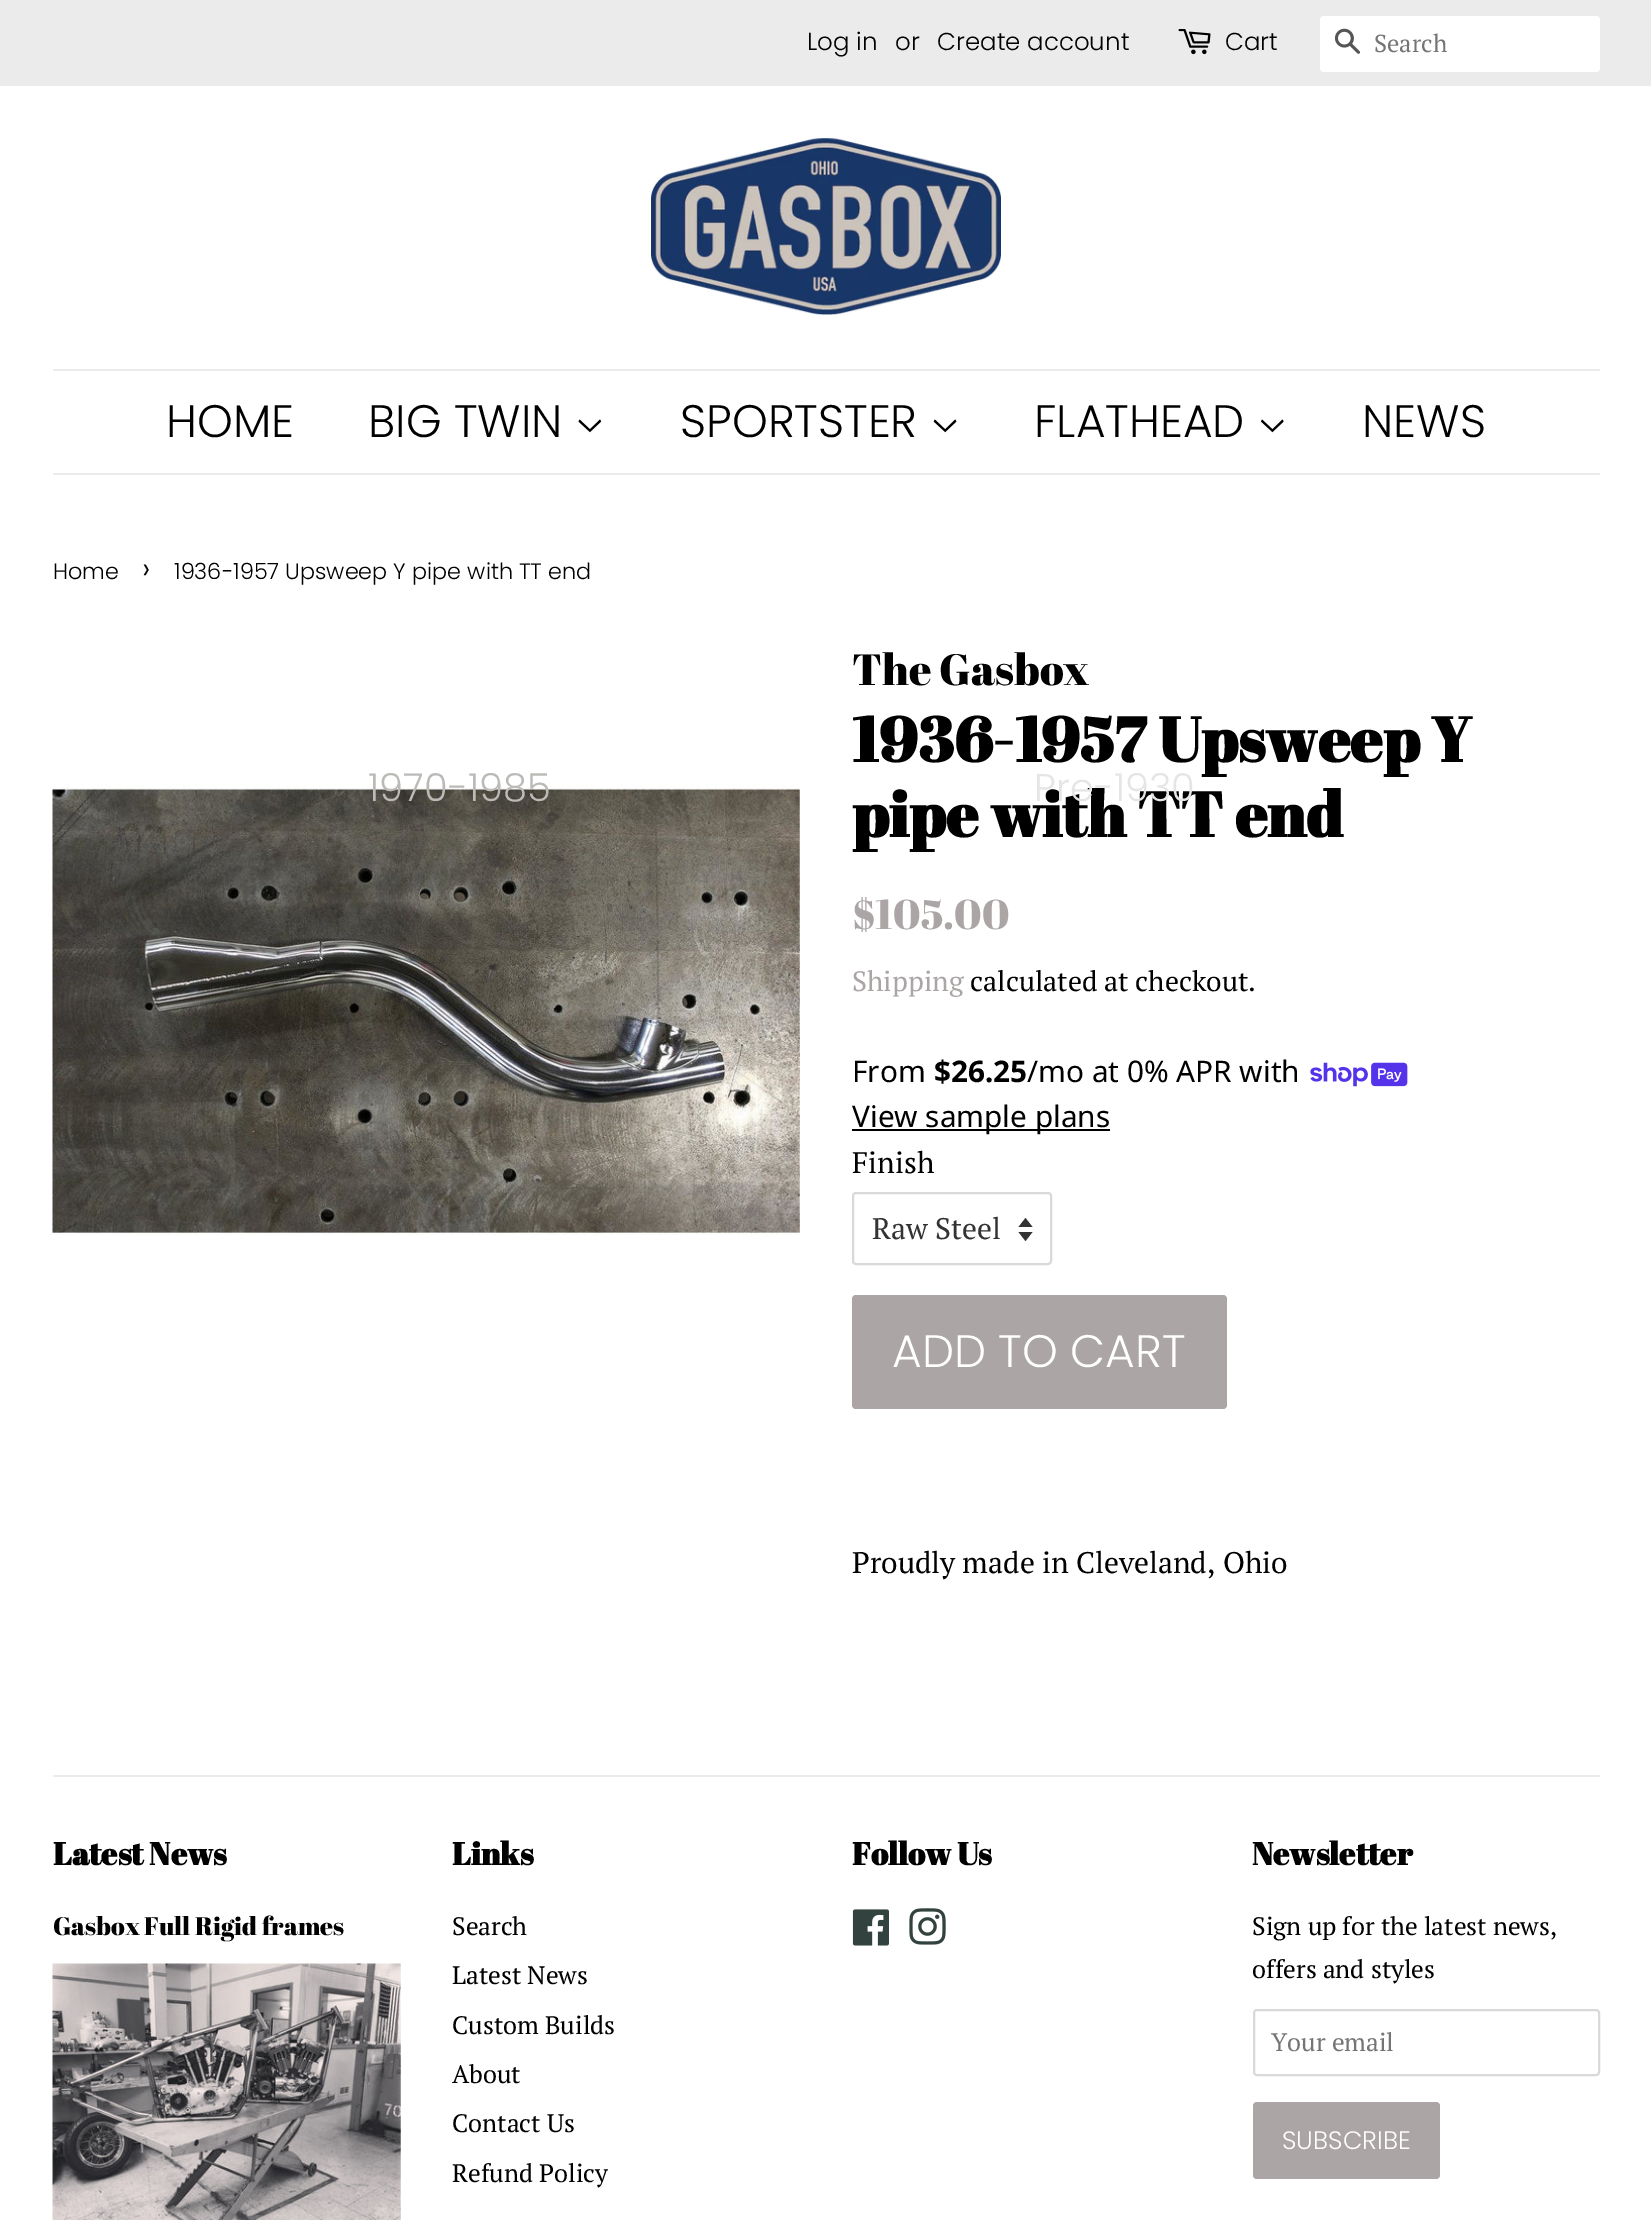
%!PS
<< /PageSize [1651 2220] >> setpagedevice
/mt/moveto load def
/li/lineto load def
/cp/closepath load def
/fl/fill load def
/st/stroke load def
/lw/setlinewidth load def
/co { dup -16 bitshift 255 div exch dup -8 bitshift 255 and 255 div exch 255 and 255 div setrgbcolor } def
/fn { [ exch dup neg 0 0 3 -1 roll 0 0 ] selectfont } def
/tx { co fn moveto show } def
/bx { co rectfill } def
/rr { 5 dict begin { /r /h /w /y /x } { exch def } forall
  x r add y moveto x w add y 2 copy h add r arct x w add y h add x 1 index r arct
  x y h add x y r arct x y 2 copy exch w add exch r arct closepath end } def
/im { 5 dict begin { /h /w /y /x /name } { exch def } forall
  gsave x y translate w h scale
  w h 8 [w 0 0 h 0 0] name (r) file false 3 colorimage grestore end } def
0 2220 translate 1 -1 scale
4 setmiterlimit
0 0 1651 2220 16#FFFFFF bx
0 0 1651 86 16#EBEBEB bx
(media/1.raw) 1178 29 33 26 im
16#FFFFFF co
1320 16 280 56 4 rr fl
(media/2.raw) 1334 28 27 26 im
(media/3.raw) 651 138 350 177 im
53 369 1547 2 16#EBEBEB bx
53 473 1547 2 16#EBEBEB bx
(media/4.raw) 578 419 24 14 im
(media/5.raw) 933 419 24 14 im
(media/6.raw) 1261 419 23 14 im
(media/7.raw) 52 784 748 451 im
(media/8.raw) 1310 1062 98 25 im
852 1129 258 2 16#000000 bx
16#333333 co
1018.5 1232 mt 1025.5 1241 li 1032.5 1232 li cp 1025.5 1218 mt 1018.5 1227 li 1032.5 1227 li cp fl
16#D9D9D9 co
2 lw
853 1193 198 71 3 rr st
16#ABA5A5 co
852 1295 375 114 4 rr fl
53 1775 1547 2 16#EBEBEB bx
(media/9.raw) 52 1963 349 257 im
(media/10.raw) 852 1909 37 37 im
(media/11.raw) 909 1908 37 37 im
16#D9D9D9 co
1254 2010 345 65 3 rr st
16#ABA5A5 co
1253 2102 187 77 4 rr fl
(Log in) 807 50 /Poppins-Light 24.5 16#000000 tx
(or) 895 50 /Poppins-Light 24.5 16#000000 tx
(Create account) 937 50 /Poppins-Light 24.5 16#000000 tx
(Cart) 1225 50 /Poppins-Light 24.5 16#000000 tx
(Search) 1374 52 /PTSerif-Regular 24.5 16#757575 tx
(HOME) 166 437 /Poppins-Light 45.5 16#000000 tx
(BIG TWIN) 368 437 /Poppins-Light 45.5 16#000000 tx
(1970-1985) 368 801 /Poppins-Light 38.5 16#BCBAB7 tx
(SPORTSTER) 680 437 /Poppins-Light 45.5 16#000000 tx
(FLATHEAD) 1034 437 /Poppins-Light 45.5 16#000000 tx
(NEWS) 1362 437 /Poppins-Light 45.5 16#000000 tx
(Home) 53 579 /Poppins-Light 22.3 16#000000 tx
(›) 142 579 /Poppins-Light 31 16#000000 tx
(1936-1957 Upsweep Y pipe with TT end) 174 579 /Poppins-Light 22.3 16#000000 tx
(The Gasbox) 852 685 /AbrilFatface-Regular 43.75 16#000000 tx
(1936-1957 Upsweep Y) 852 762 /AbrilFatface-Bold 63 16#000000 tx
(pipe with TT end) 852 837 /AbrilFatface-Bold 63 16#000000 tx
(Pre-1930) 1034 801 /Poppins-Light 38.5 16#E5E5E5 tx
($105.00) 852 929 /AbrilFatface-Regular 41.5 16#ABA5A5 tx
(Shipping) 852 991 /PTSerif-Regular 28 16#ABA5A5 tx
(calculated at checkout.) 970 991 /PTSerif-Regular 28 16#000000 tx
(From) 852 1082 /NotoSans-Regular 29.75 16#000000 tx
($26.25) 934 1082 /NotoSans-Bold 29.75 16#000000 tx
(/mo at 0% APR with) 1027 1082 /NotoSans-Regular 29.75 16#000000 tx
(View sample plans) 852 1127 /NotoSans-Regular 29.75 16#000000 tx
(Finish) 852 1173 /PTSerif-Regular 29.75 16#000000 tx
(Raw Steel) 872 1239 /PTSerif-Regular 29.75 16#333333 tx
(ADD TO CART) 892 1367 /Poppins-Light 45.5 16#FFFFFF tx
(Proudly made in Cleveland, Ohio) 852 1573 /PTSerif-Regular 29.75 16#000000 tx
(Latest News) 53 1865 /AbrilFatface-Bold 31.5 16#000000 tx
(Gasbox Full Rigid frames) 53 1935 /AbrilFatface-Regular 25.25 16#000000 tx
(Links) 452 1865 /AbrilFatface-Bold 31.5 16#000000 tx
(Search) 452 1935 /PTSerif-Regular 25.25 16#000000 tx
(Latest News) 452 1984 /PTSerif-Regular 25.25 16#000000 tx
(Custom Builds) 452 2034 /PTSerif-Regular 25.25 16#000000 tx
(About) 452 2083 /PTSerif-Regular 25.25 16#000000 tx
(Contact Us) 452 2132 /PTSerif-Regular 25.25 16#000000 tx
(Refund Policy) 452 2182 /PTSerif-Regular 25.25 16#000000 tx
(Follow Us) 852 1865 /AbrilFatface-Bold 31.5 16#000000 tx
(Newsletter) 1252 1865 /AbrilFatface-Bold 31.5 16#000000 tx
(Sign up for the latest news,) 1252 1935 /PTSerif-Regular 25.25 16#000000 tx
(offers and styles) 1252 1978 /PTSerif-Regular 25.25 16#000000 tx
(Your email) 1271 2051 /PTSerif-Regular 25.25 16#757575 tx
(SUBSCRIBE) 1282 2149 /Poppins-Light 25.25 16#FFFFFF tx
showpage
